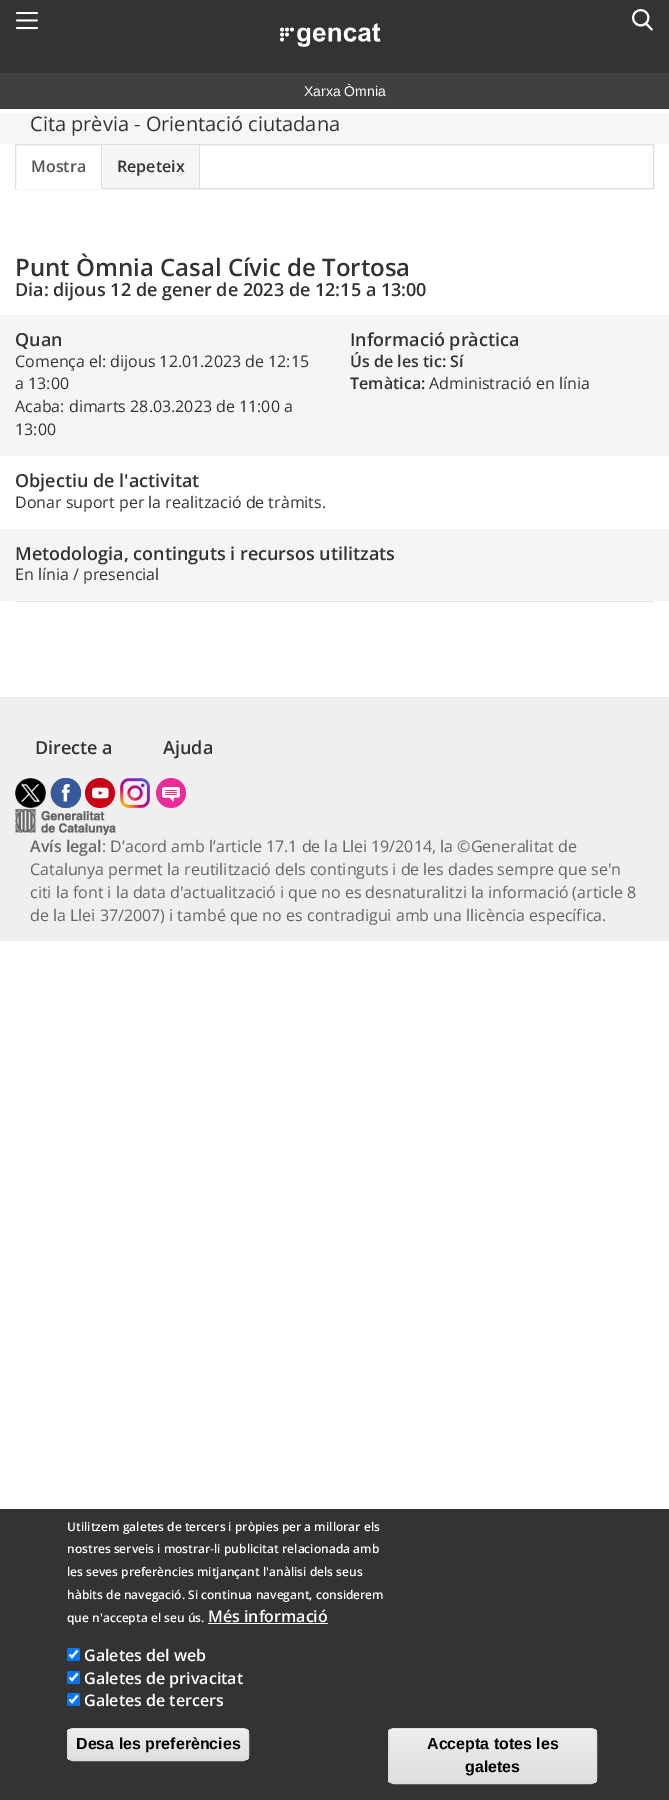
%!PS
<< /PageSize [669 1800] >> setpagedevice
/mt/moveto load def
/li/lineto load def
/ct/curveto load def
/cp/closepath load def
/fl/fill load def
/st/stroke load def
/gs/gsave load def
/gr/grestore load def
/lw/setlinewidth load def
/co { dup -16 bitshift 255 div exch dup -8 bitshift 255 and 255 div exch 255 and 255 div setrgbcolor } def
/fn { [ exch dup neg 0 0 3 -1 roll 0 0 ] selectfont } def
/tx { co fn moveto show } def
/bx { co rectfill } def
/rr { 5 dict begin { /r /h /w /y /x } { exch def } forall
  x r add y moveto x w add y 2 copy h add r arct x w add y h add x 1 index r arct
  x y h add x y r arct x y 2 copy exch w add exch r arct closepath end } def
/im { 5 dict begin { /h /w /y /x /name } { exch def } forall
  gsave x y translate w h scale
  w h 8 [w 0 0 h 0 0] name (r) file false 3 colorimage grestore end } def
0 1800 translate 1 -1 scale
4 setmiterlimit
0 0 669 1800 16#FFFFFF bx
0 0 669 73 16#333333 bx
(media/1.raw) 16 12 22 18 im
(media/2.raw) 280 23 101 24 im
(media/3.raw) 632 9 21 22 im
0 73 669 36 16#404040 bx
0 113 669 31 16#F6F6F6 bx
16#DDDDDD co
15.5 144.5 638 44 rectstroke
16 188 86 1 16#FFFFFF bx
16#DDDDDD co
102 145 mt 102 189 li 101 188 li 101 145 li cp fl
102 145 97 43 16#F5F5F5 bx
199 145 1 44 16#DDDDDD bx
0 315 669 141 16#F5F5F5 bx
0 529 669 72 16#F5F5F5 bx
15 601 639 1 16#E5E5E5 bx
0 698 669 243 16#EFEFEF bx
0 697 669 1 16#E5E5E5 bx
(media/4.raw) 15 778 31 30 im
(media/5.raw) 50 778 31 30 im
(media/6.raw) 85 778 30 30 im
(media/7.raw) 120 778 30 30 im
(media/8.raw) 156 778 30 30 im
(media/9.raw) 15 809 101 26 im
0 1509 669 291 16#333333 bx
208 1623 120 1 16#FFFFFF bx
16#0075FF co
67 1648 13 13 2 rr fl
16#FFFFFF co
2.1 lw
69.5 1654.5 mt 72 1657 li 77.5 1650.5 li st
16#0075FF co
67 1671 13 13 2 rr fl
16#FFFFFF co
69.5 1677.5 mt 72 1680 li 77.5 1673.5 li st
16#0075FF co
67 1693 13 13 2 rr fl
16#FFFFFF co
69.5 1699.5 mt 72 1702 li 77.5 1695.5 li st
gs
67 1728 182 33 6 rr clip newpath
gs 67 1729 mt 249 1729 li 249 1760 li 67 1760 li cp clip newpath
<< /ShadingType 2 /ColorSpace /DeviceRGB /Coords [158 1729 158 1760] /Extend [true true] /Function << /FunctionType 3 /Domain [0 1] /Functions [<< /FunctionType 2 /Domain [0 1] /C0 [.929 .929 .929] /C1 [.929 .929 .929] /N 1 >> << /FunctionType 2 /Domain [0 1] /C0 [.929 .929 .929] /C1 [.875 .875 .875] /N 1 >>] /Bounds [.05] /Encode [0 1 0 1] >> >> shfill gr
gr
73 1730 mt 243 1730 li 246 1730 248 1732 248 1735 ct 248 1732 247 1730 244 1729 ct 73 1729 li 70 1729 68 1732 68 1735 ct 68 1732 70 1730 73 1730 ct cp fl
16#DCDCDC co
1 lw
67.5 1728.5 181 32 5.5 rr st
gs
388 1728 209 56 6 rr clip newpath
gs 388 1729 mt 597 1729 li 597 1783 li 388 1783 li cp clip newpath
<< /ShadingType 2 /ColorSpace /DeviceRGB /Coords [493 1729 493 1783] /Extend [true true] /Function << /FunctionType 3 /Domain [0 1] /Functions [<< /FunctionType 2 /Domain [0 1] /C0 [.929 .929 .929] /C1 [.929 .929 .929] /N 1 >> << /FunctionType 2 /Domain [0 1] /C0 [.929 .929 .929] /C1 [.875 .875 .875] /N 1 >>] /Bounds [.05] /Encode [0 1 0 1] >> >> shfill gr
gr
16#FFFFFF co
394 1730 mt 591 1730 li 594 1730 596 1732 596 1735 ct 596 1734 li 596 1731 594 1729 591 1729 ct 394 1729 li 391 1729 389 1731 389 1734 ct 389 1735 li 389 1732 391 1730 394 1730 ct cp fl
16#DCDCDC co
388.5 1728.5 208 55 5.5 rr st
(Xarxa Òmnia) 304 96 /LiberationSans-Regular 14 16#FFFFFF tx
(Cita prèvia - Orientació ciutadana) 30 131 /OpenSans-Regular 20 16#333333 tx
(Mostra) 31 172 /OpenSans-SemiBold 16 16#555555 tx
(Repeteix) 117 172 /OpenSans-SemiBold 16 16#333333 tx
(Punt Òmnia Casal Cívic de Tortosa) 15 276 /OpenSans-SemiBold 24 16#333333 tx
(Dia: dijous 12 de gener de 2023 de 12:15 a 13:00) 15 296 /OpenSans-SemiBold 18 16#333333 tx
(Quan) 15 346 /OpenSans-SemiBold 18 16#333333 tx
(Comença el: dijous 12.01.2023 de 12:15) 15 367 /OpenSans-Regular 16 16#333333 tx
(a 13:00) 15 389 /OpenSans-Regular 16 16#333333 tx
(Acaba: dimarts 28.03.2023 de 11:00 a) 15 412 /OpenSans-Regular 16 16#333333 tx
(13:00) 15 435 /OpenSans-Regular 16 16#333333 tx
(Informació pràctica) 350 346 /OpenSans-SemiBold 18 16#333333 tx
(Ús de les tic: Sí) 350 367 /OpenSans-SemiBold 16 16#333333 tx
(Temàtica:) 350 389 /OpenSans-SemiBold 16 16#333333 tx
(Administració en línia) 429 389 /OpenSans-Regular 16 16#333333 tx
(Objectiu de l'activitat) 15 487 /OpenSans-SemiBold 18 16#333333 tx
(Donar suport per la realització de tràmits.) 15 508 /OpenSans-Regular 16 16#333333 tx
(Metodologia, continguts i recursos utilitzats) 15 560 /OpenSans-SemiBold 18 16#333333 tx
(En línia / presencial) 15 580 /OpenSans-Regular 16 16#333333 tx
(Directe a) 35 754 /OpenSans-SemiBold 18 16#333333 tx
(Ajuda) 163 754 /OpenSans-SemiBold 18 16#333333 tx
(Avís legal) 30 852 /OpenSans-SemiBold 16 16#666666 tx
(: D’acord amb l’article 17.1 de la Llei 19/2014, la ©Generalitat de) 102 852 /OpenSans-Regular 16 16#666666 tx
(Catalunya permet la reutilització dels continguts i de les dades sempre que se'n) 30 875 /OpenSans-Regular 16 16#666666 tx
(citi la font i la data d'actualització i que no es desnaturalitzi la informació \(article 8) 30 898 /OpenSans-Regular 16 16#666666 tx
(de la Llei 37/2007\) i també que no es contradigui amb una llicència específica.) 30 921 /OpenSans-Regular 16 16#666666 tx
(Utilitzem galetes de tercers i pròpies per a millorar els) 67 1531 /OpenSans-SemiBold 12 16#FFFFFF tx
(nostres serveis i mostrar-li publicitat relacionada amb) 67 1553 /OpenSans-SemiBold 12 16#FFFFFF tx
(les seves preferències mitjançant l'anàlisi dels seus) 67 1576 /OpenSans-SemiBold 12 16#FFFFFF tx
(hàbits de navegació. Si continua navegant, considerem) 67 1599 /OpenSans-SemiBold 12 16#FFFFFF tx
(que n'accepta el seu ús.) 67 1622 /OpenSans-SemiBold 12 16#FFFFFF tx
(Més informació) 208 1622 /OpenSans-SemiBold 16 16#FFFFFF tx
(Galetes del web) 84 1661 /OpenSans-SemiBold 16 16#FFFFFF tx
(Galetes de privacitat) 84 1684 /OpenSans-SemiBold 16 16#FFFFFF tx
(Galetes de tercers) 84 1706 /OpenSans-SemiBold 16 16#FFFFFF tx
(Desa les preferències) 76 1749 /LiberationSans-Bold 16 16#000000 tx
(Accepta totes les) 427 1749 /LiberationSans-Bold 16 16#000000 tx
(galetes) 465 1772 /LiberationSans-Bold 16 16#000000 tx
showpage
